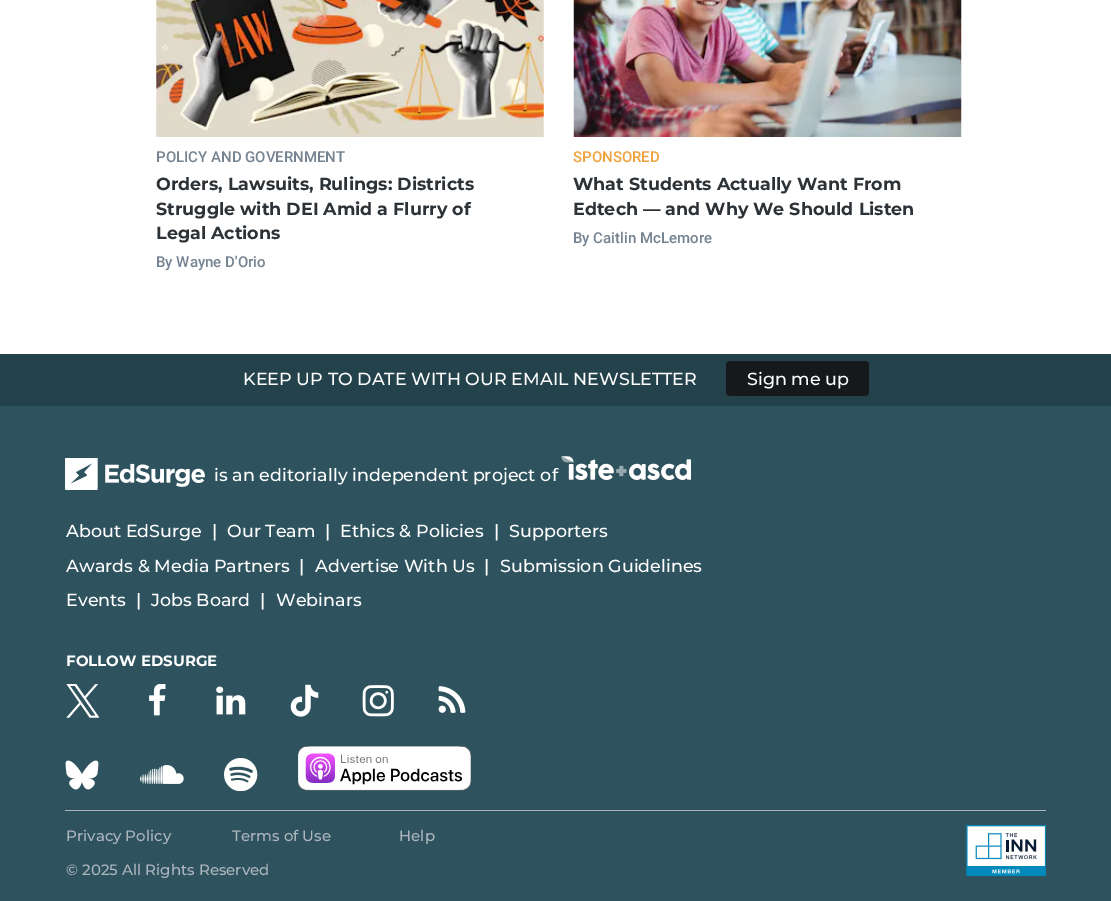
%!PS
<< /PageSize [1111 901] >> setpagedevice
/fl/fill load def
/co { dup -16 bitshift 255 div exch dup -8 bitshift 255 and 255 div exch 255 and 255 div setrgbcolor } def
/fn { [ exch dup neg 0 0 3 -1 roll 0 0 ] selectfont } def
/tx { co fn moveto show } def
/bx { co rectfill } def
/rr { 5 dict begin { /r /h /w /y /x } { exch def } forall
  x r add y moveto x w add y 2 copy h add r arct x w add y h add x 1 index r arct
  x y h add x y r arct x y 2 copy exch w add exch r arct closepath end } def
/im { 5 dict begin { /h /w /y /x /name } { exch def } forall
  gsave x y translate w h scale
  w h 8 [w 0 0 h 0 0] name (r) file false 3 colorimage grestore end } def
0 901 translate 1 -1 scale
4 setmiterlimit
0 0 1111 901 16#FFFFFF bx
(media/1.raw) 156 0 388 137 im
(media/2.raw) 573 0 389 137 im
0 354 1111 52 16#24424B bx
16#16191B co
726 361 143 35 4 rr fl
0 406 1111 495 16#2E535E bx
(media/3.raw) 65 458 140 32 im
(media/4.raw) 561 456 130 24 im
(media/5.raw) 66 684 33 34 im
(media/6.raw) 149 684 17 32 im
(media/7.raw) 216 686 30 29 im
(media/8.raw) 290 684 29 33 im
(media/9.raw) 362 685 32 32 im
(media/10.raw) 438 686 28 27 im
(media/11.raw) 65 760 34 30 im
(media/12.raw) 140 765 44 19 im
(media/13.raw) 224 758 34 33 im
(media/14.raw) 298 746 173 45 im
65 810 981 1 16#ADB5BE bx
(media/15.raw) 966 825 80 51 im
(POLICY AND GOVERNMENT) 156 162 /Roboto-Medium 15 16#768492 tx
(Orders, Lawsuits, Rulings: Districts) 156 190 /Montserrat-Bold 17.5 16#2D3237 tx
(Struggle with DEI Amid a Flurry of) 156 215 /Montserrat-Bold 17.5 16#2D3237 tx
(Legal Actions) 156 239 /Montserrat-Bold 17.5 16#2D3237 tx
(By Wayne D'Orio) 156 267 /Roboto-Medium 15 16#768492 tx
(SPONSORED) 573 162 /Roboto-Medium 15 16#F1A33F tx
(What Students Actually Want From) 573 190 /Montserrat-Bold 17.5 16#2D3237 tx
(Edtech — and Why We Should Listen) 573 215 /Montserrat-Bold 17.5 16#2D3237 tx
(By Caitlin McLemore) 573 243 /Roboto-Medium 15 16#768492 tx
(KEEP UP TO DATE WITH OUR EMAIL NEWSLETTER) 243 385 /Montserrat-Medium 17.5 16#FFFFFF tx
(Sign me up) 747 385 /Montserrat-Medium 17.5 16#FFFFFF tx
(is an editorially independent project of) 214 481 /Montserrat-Medium 17.5 16#FFFFFF tx
(About EdSurge) 66 537 /Montserrat-Medium 17.5 16#FFFFFF tx
(|) 212 537 /Montserrat-Medium 17.5 16#FFFFFF tx
(Our Team) 227 537 /Montserrat-Medium 17.5 16#FFFFFF tx
(|) 325 537 /Montserrat-Medium 17.5 16#FFFFFF tx
(Ethics & Policies) 340 537 /Montserrat-Medium 17.5 16#FFFFFF tx
(|) 494 537 /Montserrat-Medium 17.5 16#FFFFFF tx
(Supporters) 509 537 /Montserrat-Medium 17.5 16#FFFFFF tx
(Awards & Media Partners) 66 572 /Montserrat-Medium 17.5 16#FFFFFF tx
(|) 299 572 /Montserrat-Medium 17.5 16#FFFFFF tx
(Advertise With Us) 315 572 /Montserrat-Medium 17.5 16#FFFFFF tx
(|) 484 572 /Montserrat-Medium 17.5 16#FFFFFF tx
(Submission Guidelines) 500 572 /Montserrat-Medium 17.5 16#FFFFFF tx
(Events) 66 606 /Montserrat-Medium 17.5 16#FFFFFF tx
(|) 136 606 /Montserrat-Medium 17.5 16#FFFFFF tx
(Jobs Board) 151 606 /Montserrat-Medium 17.5 16#FFFFFF tx
(|) 260 606 /Montserrat-Medium 17.5 16#FFFFFF tx
(Webinars) 276 606 /Montserrat-Medium 17.5 16#FFFFFF tx
(FOLLOW EDSURGE) 66 666 /Montserrat-Bold 15 16#FFFFFF tx
(Privacy Policy) 66 841 /Montserrat-Medium 15 16#ADB5BE tx
(Terms of Use) 232 841 /Montserrat-Medium 15 16#ADB5BE tx
(Help) 399 841 /Montserrat-Medium 15 16#ADB5BE tx
(© 2025 All Rights Reserved) 66 875 /Montserrat-Medium 15 16#ADB5BE tx
showpage
